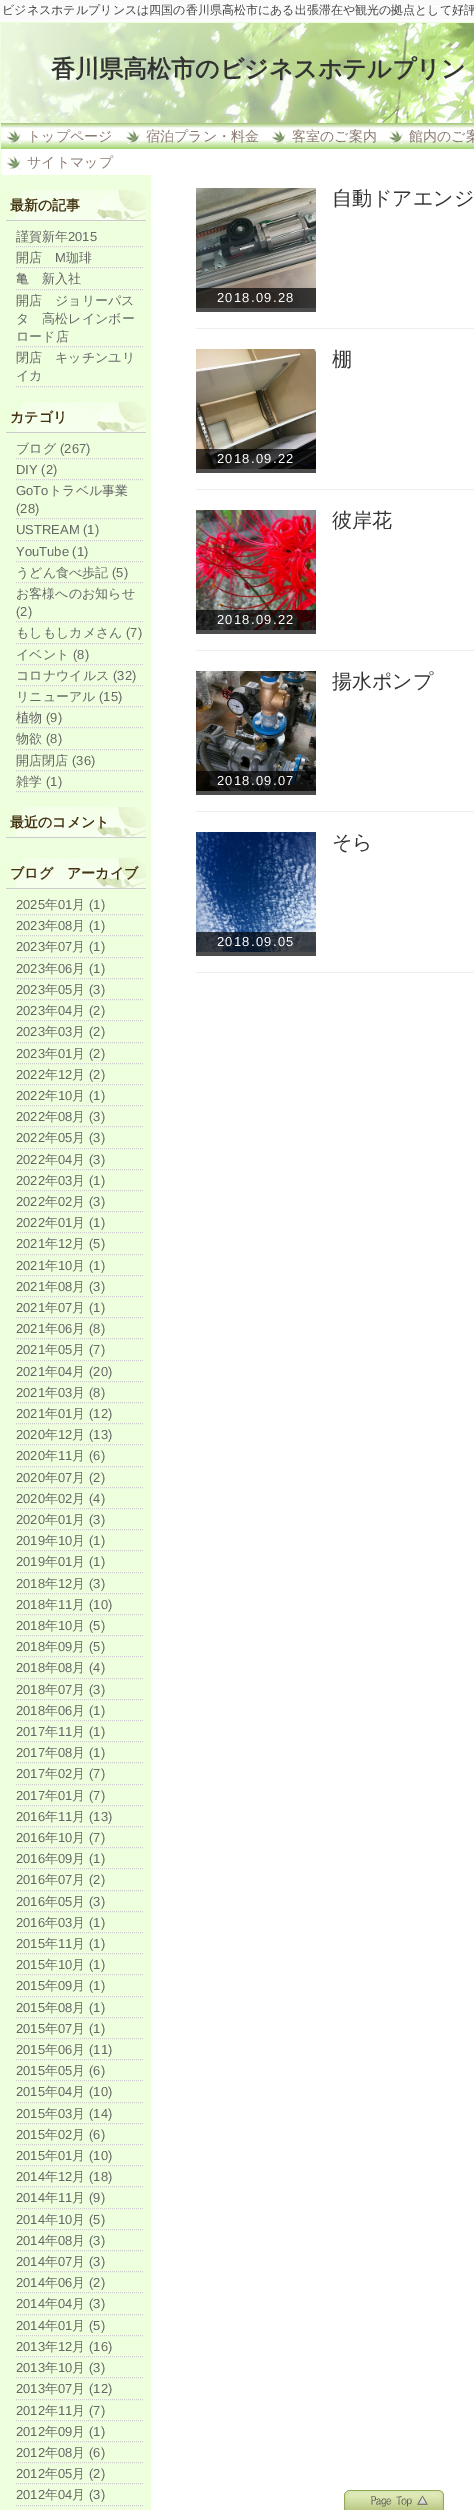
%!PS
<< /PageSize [474 2510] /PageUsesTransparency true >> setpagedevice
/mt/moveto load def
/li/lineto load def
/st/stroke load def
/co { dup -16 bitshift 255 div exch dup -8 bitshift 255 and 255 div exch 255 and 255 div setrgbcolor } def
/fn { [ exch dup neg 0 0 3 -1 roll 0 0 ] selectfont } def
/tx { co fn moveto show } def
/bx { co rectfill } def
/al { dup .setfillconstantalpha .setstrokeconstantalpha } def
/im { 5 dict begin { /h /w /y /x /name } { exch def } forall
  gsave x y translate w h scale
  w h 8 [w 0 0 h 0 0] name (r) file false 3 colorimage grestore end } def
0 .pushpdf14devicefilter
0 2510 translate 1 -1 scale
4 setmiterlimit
0 0 474 2510 16#FFFFFF bx
(media/1.raw) 0 0 474 22 im
16#EEFFDD co
.5 22.5 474 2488 rectstroke
(media/2.raw) 1 23 473 100 im
(media/3.raw) 1 123 473 26 im
(media/4.raw) 7 130 14 14 im
(media/4.raw) 126 130 14 14 im
(media/4.raw) 272 130 14 14 im
(media/4.raw) 389 130 14 14 im
(media/5.raw) 7 156 14 14 im
1 175 150 2335 16#EEFFDD bx
(media/6.raw) 16 190 130 30 im
6 220 140 1 16#CCCCCC bx
[1 1] 0 setdash
16 246.5 mt 144 246.5 li st
16 267.5 mt 144 267.5 li st
16 289.5 mt 144 289.5 li st
16 346.5 mt 144 346.5 li st
16 386.5 mt 144 386.5 li st
(media/6.raw) 16 402 130 30 im
6 432 140 1 16#CCCCCC bx
16 458.5 mt 144 458.5 li st
16 479.5 mt 144 479.5 li st
16 518.5 mt 144 518.5 li st
16 540.5 mt 144 540.5 li st
16 561.5 mt 144 561.5 li st
16 582.5 mt 144 582.5 li st
16 621.5 mt 144 621.5 li st
16 643.5 mt 144 643.5 li st
16 664.5 mt 144 664.5 li st
16 685.5 mt 144 685.5 li st
16 706.5 mt 144 706.5 li st
16 727.5 mt 144 727.5 li st
16 749.5 mt 144 749.5 li st
16 770.5 mt 144 770.5 li st
16 791.5 mt 144 791.5 li st
(media/6.raw) 16 807 130 30 im
6 837 140 1 16#CCCCCC bx
(media/6.raw) 16 858 130 30 im
6 888 140 1 16#CCCCCC bx
16 914.5 mt 144 914.5 li st
16 935.5 mt 144 935.5 li st
16 957.5 mt 144 957.5 li st
16 978.5 mt 144 978.5 li st
16 999.5 mt 144 999.5 li st
16 1020.5 mt 144 1020.5 li st
16 1042.5 mt 144 1042.5 li st
16 1063.5 mt 144 1063.5 li st
16 1084.5 mt 144 1084.5 li st
16 1105.5 mt 144 1105.5 li st
16 1126.5 mt 144 1126.5 li st
16 1148.5 mt 144 1148.5 li st
16 1169.5 mt 144 1169.5 li st
16 1190.5 mt 144 1190.5 li st
16 1211.5 mt 144 1211.5 li st
16 1232.5 mt 144 1232.5 li st
16 1254.5 mt 144 1254.5 li st
16 1275.5 mt 144 1275.5 li st
16 1296.5 mt 144 1296.5 li st
16 1317.5 mt 144 1317.5 li st
16 1338.5 mt 144 1338.5 li st
16 1360.5 mt 144 1360.5 li st
16 1381.5 mt 144 1381.5 li st
16 1402.5 mt 144 1402.5 li st
16 1423.5 mt 144 1423.5 li st
16 1444.5 mt 144 1444.5 li st
16 1466.5 mt 144 1466.5 li st
16 1487.5 mt 144 1487.5 li st
16 1508.5 mt 144 1508.5 li st
16 1529.5 mt 144 1529.5 li st
16 1550.5 mt 144 1550.5 li st
16 1572.5 mt 144 1572.5 li st
16 1593.5 mt 144 1593.5 li st
16 1614.5 mt 144 1614.5 li st
16 1635.5 mt 144 1635.5 li st
16 1656.5 mt 144 1656.5 li st
16 1678.5 mt 144 1678.5 li st
16 1699.5 mt 144 1699.5 li st
16 1720.5 mt 144 1720.5 li st
16 1741.5 mt 144 1741.5 li st
16 1762.5 mt 144 1762.5 li st
16 1784.5 mt 144 1784.5 li st
16 1805.5 mt 144 1805.5 li st
16 1826.5 mt 144 1826.5 li st
16 1847.5 mt 144 1847.5 li st
16 1868.5 mt 144 1868.5 li st
16 1890.5 mt 144 1890.5 li st
16 1911.5 mt 144 1911.5 li st
16 1932.5 mt 144 1932.5 li st
16 1953.5 mt 144 1953.5 li st
16 1974.5 mt 144 1974.5 li st
16 1996.5 mt 144 1996.5 li st
16 2017.5 mt 144 2017.5 li st
16 2038.5 mt 144 2038.5 li st
16 2059.5 mt 144 2059.5 li st
16 2080.5 mt 144 2080.5 li st
16 2102.5 mt 144 2102.5 li st
16 2123.5 mt 144 2123.5 li st
16 2144.5 mt 144 2144.5 li st
16 2165.5 mt 144 2165.5 li st
16 2186.5 mt 144 2186.5 li st
16 2208.5 mt 144 2208.5 li st
16 2229.5 mt 144 2229.5 li st
16 2250.5 mt 144 2250.5 li st
16 2271.5 mt 144 2271.5 li st
16 2292.5 mt 144 2292.5 li st
16 2314.5 mt 144 2314.5 li st
16 2335.5 mt 144 2335.5 li st
16 2356.5 mt 144 2356.5 li st
16 2377.5 mt 144 2377.5 li st
16 2399.5 mt 144 2399.5 li st
16 2420.5 mt 144 2420.5 li st
16 2441.5 mt 144 2441.5 li st
16 2462.5 mt 144 2462.5 li st
16 2483.5 mt 144 2483.5 li st
16 2505.5 mt 144 2505.5 li st
196 328 278 1 16#EEEEEE bx
(media/7.raw) 196 188 120 120 im
0.7 al
196 288 120 24 16#000000 bx
1 al
196 489 278 1 16#EEEEEE bx
(media/8.raw) 196 349 120 120 im
0.7 al
196 449 120 24 16#000000 bx
1 al
196 650 278 1 16#EEEEEE bx
(media/9.raw) 196 510 120 120 im
0.7 al
196 610 120 24 16#000000 bx
1 al
196 811 278 1 16#EEEEEE bx
(media/10.raw) 196 671 120 120 im
0.7 al
196 771 120 24 16#000000 bx
1 al
196 972 278 1 16#EEEEEE bx
(media/11.raw) 196 832 120 120 im
0.7 al
196 932 120 24 16#000000 bx
1 al
(media/12.raw) 344 2490 100 20 im
(ビジネスホテルプリンスは四国の香川県高松市にある出張滞在や観光の拠点として好評) 2 14 /WenQuanYiZenHei-Medium 12 16#444444 tx
(香川県高松市のビジネスホテルプリン) 51 77 /WenQuanYiZenHei-Bold 24 16#333333 tx
(トップページ) 27 141 /WenQuanYiZenHei-Medium 14 16#89796E tx
(宿泊プラン・料金) 146 141 /WenQuanYiZenHei-Medium 14 16#89796E tx
(客室のご案内) 292 141 /WenQuanYiZenHei-Medium 14 16#89796E tx
(館内のご案) 409 141 /WenQuanYiZenHei-Medium 14 16#89796E tx
(サイトマップ) 27 167 /WenQuanYiZenHei-Medium 14 16#89796E tx
(最新の記事) 10 210 /WenQuanYiZenHei-Bold 14 16#443311 tx
(謹賀新年) 16 241 /WenQuanYiZenHei-Medium 13 16#666666 tx
(2015) 68 241 /LiberationSans-Regular 13 16#666666 tx
(開店) 16 262 /WenQuanYiZenHei-Medium 13 16#666666 tx
(M) 55 262 /LiberationSans-Regular 13 16#666666 tx
(珈琲) 66 262 /WenQuanYiZenHei-Medium 13 16#666666 tx
(亀　新入社) 16 283 /WenQuanYiZenHei-Medium 13 16#666666 tx
(開店　ジョリーパス) 16 305 /WenQuanYiZenHei-Medium 13 16#666666 tx
(タ　高松レインボー) 16 323 /WenQuanYiZenHei-Medium 13 16#666666 tx
(ロード店) 16 341 /WenQuanYiZenHei-Medium 13 16#666666 tx
(閉店　キッチンユリ) 16 362 /WenQuanYiZenHei-Medium 13 16#666666 tx
(イカ) 16 380 /WenQuanYiZenHei-Medium 13 16#666666 tx
(カテゴリ) 10 422 /WenQuanYiZenHei-Bold 14 16#443311 tx
(ブログ) 16 453 /WenQuanYiZenHei-Medium 13 16#666666 tx
(\(267\)) 60 453 /LiberationSans-Regular 13 16#666666 tx
(DIY \(2\)) 16 474 /LiberationSans-Regular 13 16#666666 tx
(GoTo) 16 495 /LiberationSans-Regular 13 16#666666 tx
(トラベル事業) 49 495 /WenQuanYiZenHei-Medium 13 16#666666 tx
(\(28\)) 16 513 /LiberationSans-Regular 13 16#666666 tx
(USTREAM \(1\)) 16 534 /LiberationSans-Regular 13 16#666666 tx
(YouTube \(1\)) 16 556 /LiberationSans-Regular 13 16#666666 tx
(うどん食べ歩記) 16 577 /WenQuanYiZenHei-Medium 13 16#666666 tx
(\(5\)) 112 577 /LiberationSans-Regular 13 16#666666 tx
(お客様へのお知らせ) 16 598 /WenQuanYiZenHei-Medium 13 16#666666 tx
(\(2\)) 16 616 /LiberationSans-Regular 13 16#666666 tx
(もしもしカメさん) 16 637 /WenQuanYiZenHei-Medium 13 16#666666 tx
(\(7\)) 126 637 /LiberationSans-Regular 13 16#666666 tx
(イベント) 16 659 /WenQuanYiZenHei-Medium 13 16#666666 tx
(\(8\)) 73 659 /LiberationSans-Regular 13 16#666666 tx
(コロナウイルス) 16 680 /WenQuanYiZenHei-Medium 13 16#666666 tx
(\(32\)) 113 680 /LiberationSans-Regular 13 16#666666 tx
(リニューアル) 16 701 /WenQuanYiZenHei-Medium 13 16#666666 tx
(\(15\)) 99 701 /LiberationSans-Regular 13 16#666666 tx
(植物) 16 722 /WenQuanYiZenHei-Medium 13 16#666666 tx
(\(9\)) 46 722 /LiberationSans-Regular 13 16#666666 tx
(物欲) 16 743 /WenQuanYiZenHei-Medium 13 16#666666 tx
(\(8\)) 46 743 /LiberationSans-Regular 13 16#666666 tx
(開店閉店) 16 765 /WenQuanYiZenHei-Medium 13 16#666666 tx
(\(36\)) 72 765 /LiberationSans-Regular 13 16#666666 tx
(雑学) 16 786 /WenQuanYiZenHei-Medium 13 16#666666 tx
(\(1\)) 46 786 /LiberationSans-Regular 13 16#666666 tx
(最近のコメント) 10 827 /WenQuanYiZenHei-Bold 14 16#443311 tx
(ブログ　アーカイブ) 10 878 /WenQuanYiZenHei-Bold 14 16#443311 tx
(2025) 16 909 /LiberationSans-Regular 13 16#666666 tx
(年) 45 909 /WenQuanYiZenHei-Medium 13 16#666666 tx
(01) 58 909 /LiberationSans-Regular 13 16#666666 tx
(月) 72 909 /WenQuanYiZenHei-Medium 13 16#666666 tx
(\(1\)) 89 909 /LiberationSans-Regular 13 16#666666 tx
(2023) 16 930 /LiberationSans-Regular 13 16#666666 tx
(年) 45 930 /WenQuanYiZenHei-Medium 13 16#666666 tx
(08) 58 930 /LiberationSans-Regular 13 16#666666 tx
(月) 72 930 /WenQuanYiZenHei-Medium 13 16#666666 tx
(\(1\)) 89 930 /LiberationSans-Regular 13 16#666666 tx
(2023) 16 951 /LiberationSans-Regular 13 16#666666 tx
(年) 45 951 /WenQuanYiZenHei-Medium 13 16#666666 tx
(07) 58 951 /LiberationSans-Regular 13 16#666666 tx
(月) 72 951 /WenQuanYiZenHei-Medium 13 16#666666 tx
(\(1\)) 89 951 /LiberationSans-Regular 13 16#666666 tx
(2023) 16 973 /LiberationSans-Regular 13 16#666666 tx
(年) 45 973 /WenQuanYiZenHei-Medium 13 16#666666 tx
(06) 58 973 /LiberationSans-Regular 13 16#666666 tx
(月) 72 973 /WenQuanYiZenHei-Medium 13 16#666666 tx
(\(1\)) 89 973 /LiberationSans-Regular 13 16#666666 tx
(2023) 16 994 /LiberationSans-Regular 13 16#666666 tx
(年) 45 994 /WenQuanYiZenHei-Medium 13 16#666666 tx
(05) 58 994 /LiberationSans-Regular 13 16#666666 tx
(月) 72 994 /WenQuanYiZenHei-Medium 13 16#666666 tx
(\(3\)) 89 994 /LiberationSans-Regular 13 16#666666 tx
(2023) 16 1015 /LiberationSans-Regular 13 16#666666 tx
(年) 45 1015 /WenQuanYiZenHei-Medium 13 16#666666 tx
(04) 58 1015 /LiberationSans-Regular 13 16#666666 tx
(月) 72 1015 /WenQuanYiZenHei-Medium 13 16#666666 tx
(\(2\)) 89 1015 /LiberationSans-Regular 13 16#666666 tx
(2023) 16 1036 /LiberationSans-Regular 13 16#666666 tx
(年) 45 1036 /WenQuanYiZenHei-Medium 13 16#666666 tx
(03) 58 1036 /LiberationSans-Regular 13 16#666666 tx
(月) 72 1036 /WenQuanYiZenHei-Medium 13 16#666666 tx
(\(2\)) 89 1036 /LiberationSans-Regular 13 16#666666 tx
(2023) 16 1058 /LiberationSans-Regular 13 16#666666 tx
(年) 45 1058 /WenQuanYiZenHei-Medium 13 16#666666 tx
(01) 58 1058 /LiberationSans-Regular 13 16#666666 tx
(月) 72 1058 /WenQuanYiZenHei-Medium 13 16#666666 tx
(\(2\)) 89 1058 /LiberationSans-Regular 13 16#666666 tx
(2022) 16 1079 /LiberationSans-Regular 13 16#666666 tx
(年) 45 1079 /WenQuanYiZenHei-Medium 13 16#666666 tx
(12) 58 1079 /LiberationSans-Regular 13 16#666666 tx
(月) 72 1079 /WenQuanYiZenHei-Medium 13 16#666666 tx
(\(2\)) 89 1079 /LiberationSans-Regular 13 16#666666 tx
(2022) 16 1100 /LiberationSans-Regular 13 16#666666 tx
(年) 45 1100 /WenQuanYiZenHei-Medium 13 16#666666 tx
(10) 58 1100 /LiberationSans-Regular 13 16#666666 tx
(月) 72 1100 /WenQuanYiZenHei-Medium 13 16#666666 tx
(\(1\)) 89 1100 /LiberationSans-Regular 13 16#666666 tx
(2022) 16 1121 /LiberationSans-Regular 13 16#666666 tx
(年) 45 1121 /WenQuanYiZenHei-Medium 13 16#666666 tx
(08) 58 1121 /LiberationSans-Regular 13 16#666666 tx
(月) 72 1121 /WenQuanYiZenHei-Medium 13 16#666666 tx
(\(3\)) 89 1121 /LiberationSans-Regular 13 16#666666 tx
(2022) 16 1142 /LiberationSans-Regular 13 16#666666 tx
(年) 45 1142 /WenQuanYiZenHei-Medium 13 16#666666 tx
(05) 58 1142 /LiberationSans-Regular 13 16#666666 tx
(月) 72 1142 /WenQuanYiZenHei-Medium 13 16#666666 tx
(\(3\)) 89 1142 /LiberationSans-Regular 13 16#666666 tx
(2022) 16 1164 /LiberationSans-Regular 13 16#666666 tx
(年) 45 1164 /WenQuanYiZenHei-Medium 13 16#666666 tx
(04) 58 1164 /LiberationSans-Regular 13 16#666666 tx
(月) 72 1164 /WenQuanYiZenHei-Medium 13 16#666666 tx
(\(3\)) 89 1164 /LiberationSans-Regular 13 16#666666 tx
(2022) 16 1185 /LiberationSans-Regular 13 16#666666 tx
(年) 45 1185 /WenQuanYiZenHei-Medium 13 16#666666 tx
(03) 58 1185 /LiberationSans-Regular 13 16#666666 tx
(月) 72 1185 /WenQuanYiZenHei-Medium 13 16#666666 tx
(\(1\)) 89 1185 /LiberationSans-Regular 13 16#666666 tx
(2022) 16 1206 /LiberationSans-Regular 13 16#666666 tx
(年) 45 1206 /WenQuanYiZenHei-Medium 13 16#666666 tx
(02) 58 1206 /LiberationSans-Regular 13 16#666666 tx
(月) 72 1206 /WenQuanYiZenHei-Medium 13 16#666666 tx
(\(3\)) 89 1206 /LiberationSans-Regular 13 16#666666 tx
(2022) 16 1227 /LiberationSans-Regular 13 16#666666 tx
(年) 45 1227 /WenQuanYiZenHei-Medium 13 16#666666 tx
(01) 58 1227 /LiberationSans-Regular 13 16#666666 tx
(月) 72 1227 /WenQuanYiZenHei-Medium 13 16#666666 tx
(\(1\)) 89 1227 /LiberationSans-Regular 13 16#666666 tx
(2021) 16 1248 /LiberationSans-Regular 13 16#666666 tx
(年) 45 1248 /WenQuanYiZenHei-Medium 13 16#666666 tx
(12) 58 1248 /LiberationSans-Regular 13 16#666666 tx
(月) 72 1248 /WenQuanYiZenHei-Medium 13 16#666666 tx
(\(5\)) 89 1248 /LiberationSans-Regular 13 16#666666 tx
(2021) 16 1270 /LiberationSans-Regular 13 16#666666 tx
(年) 45 1270 /WenQuanYiZenHei-Medium 13 16#666666 tx
(10) 58 1270 /LiberationSans-Regular 13 16#666666 tx
(月) 72 1270 /WenQuanYiZenHei-Medium 13 16#666666 tx
(\(1\)) 89 1270 /LiberationSans-Regular 13 16#666666 tx
(2021) 16 1291 /LiberationSans-Regular 13 16#666666 tx
(年) 45 1291 /WenQuanYiZenHei-Medium 13 16#666666 tx
(08) 58 1291 /LiberationSans-Regular 13 16#666666 tx
(月) 72 1291 /WenQuanYiZenHei-Medium 13 16#666666 tx
(\(3\)) 89 1291 /LiberationSans-Regular 13 16#666666 tx
(2021) 16 1312 /LiberationSans-Regular 13 16#666666 tx
(年) 45 1312 /WenQuanYiZenHei-Medium 13 16#666666 tx
(07) 58 1312 /LiberationSans-Regular 13 16#666666 tx
(月) 72 1312 /WenQuanYiZenHei-Medium 13 16#666666 tx
(\(1\)) 89 1312 /LiberationSans-Regular 13 16#666666 tx
(2021) 16 1333 /LiberationSans-Regular 13 16#666666 tx
(年) 45 1333 /WenQuanYiZenHei-Medium 13 16#666666 tx
(06) 58 1333 /LiberationSans-Regular 13 16#666666 tx
(月) 72 1333 /WenQuanYiZenHei-Medium 13 16#666666 tx
(\(8\)) 89 1333 /LiberationSans-Regular 13 16#666666 tx
(2021) 16 1354 /LiberationSans-Regular 13 16#666666 tx
(年) 45 1354 /WenQuanYiZenHei-Medium 13 16#666666 tx
(05) 58 1354 /LiberationSans-Regular 13 16#666666 tx
(月) 72 1354 /WenQuanYiZenHei-Medium 13 16#666666 tx
(\(7\)) 89 1354 /LiberationSans-Regular 13 16#666666 tx
(2021) 16 1376 /LiberationSans-Regular 13 16#666666 tx
(年) 45 1376 /WenQuanYiZenHei-Medium 13 16#666666 tx
(04) 58 1376 /LiberationSans-Regular 13 16#666666 tx
(月) 72 1376 /WenQuanYiZenHei-Medium 13 16#666666 tx
(\(20\)) 89 1376 /LiberationSans-Regular 13 16#666666 tx
(2021) 16 1397 /LiberationSans-Regular 13 16#666666 tx
(年) 45 1397 /WenQuanYiZenHei-Medium 13 16#666666 tx
(03) 58 1397 /LiberationSans-Regular 13 16#666666 tx
(月) 72 1397 /WenQuanYiZenHei-Medium 13 16#666666 tx
(\(8\)) 89 1397 /LiberationSans-Regular 13 16#666666 tx
(2021) 16 1418 /LiberationSans-Regular 13 16#666666 tx
(年) 45 1418 /WenQuanYiZenHei-Medium 13 16#666666 tx
(01) 58 1418 /LiberationSans-Regular 13 16#666666 tx
(月) 72 1418 /WenQuanYiZenHei-Medium 13 16#666666 tx
(\(12\)) 89 1418 /LiberationSans-Regular 13 16#666666 tx
(2020) 16 1439 /LiberationSans-Regular 13 16#666666 tx
(年) 45 1439 /WenQuanYiZenHei-Medium 13 16#666666 tx
(12) 58 1439 /LiberationSans-Regular 13 16#666666 tx
(月) 72 1439 /WenQuanYiZenHei-Medium 13 16#666666 tx
(\(13\)) 89 1439 /LiberationSans-Regular 13 16#666666 tx
(2020) 16 1460 /LiberationSans-Regular 13 16#666666 tx
(年) 45 1460 /WenQuanYiZenHei-Medium 13 16#666666 tx
(11) 58 1460 /LiberationSans-Regular 13 16#666666 tx
(月) 72 1460 /WenQuanYiZenHei-Medium 13 16#666666 tx
(\(6\)) 89 1460 /LiberationSans-Regular 13 16#666666 tx
(2020) 16 1482 /LiberationSans-Regular 13 16#666666 tx
(年) 45 1482 /WenQuanYiZenHei-Medium 13 16#666666 tx
(07) 58 1482 /LiberationSans-Regular 13 16#666666 tx
(月) 72 1482 /WenQuanYiZenHei-Medium 13 16#666666 tx
(\(2\)) 89 1482 /LiberationSans-Regular 13 16#666666 tx
(2020) 16 1503 /LiberationSans-Regular 13 16#666666 tx
(年) 45 1503 /WenQuanYiZenHei-Medium 13 16#666666 tx
(02) 58 1503 /LiberationSans-Regular 13 16#666666 tx
(月) 72 1503 /WenQuanYiZenHei-Medium 13 16#666666 tx
(\(4\)) 89 1503 /LiberationSans-Regular 13 16#666666 tx
(2020) 16 1524 /LiberationSans-Regular 13 16#666666 tx
(年) 45 1524 /WenQuanYiZenHei-Medium 13 16#666666 tx
(01) 58 1524 /LiberationSans-Regular 13 16#666666 tx
(月) 72 1524 /WenQuanYiZenHei-Medium 13 16#666666 tx
(\(3\)) 89 1524 /LiberationSans-Regular 13 16#666666 tx
(2019) 16 1545 /LiberationSans-Regular 13 16#666666 tx
(年) 45 1545 /WenQuanYiZenHei-Medium 13 16#666666 tx
(10) 58 1545 /LiberationSans-Regular 13 16#666666 tx
(月) 72 1545 /WenQuanYiZenHei-Medium 13 16#666666 tx
(\(1\)) 89 1545 /LiberationSans-Regular 13 16#666666 tx
(2019) 16 1566 /LiberationSans-Regular 13 16#666666 tx
(年) 45 1566 /WenQuanYiZenHei-Medium 13 16#666666 tx
(01) 58 1566 /LiberationSans-Regular 13 16#666666 tx
(月) 72 1566 /WenQuanYiZenHei-Medium 13 16#666666 tx
(\(1\)) 89 1566 /LiberationSans-Regular 13 16#666666 tx
(2018) 16 1588 /LiberationSans-Regular 13 16#666666 tx
(年) 45 1588 /WenQuanYiZenHei-Medium 13 16#666666 tx
(12) 58 1588 /LiberationSans-Regular 13 16#666666 tx
(月) 72 1588 /WenQuanYiZenHei-Medium 13 16#666666 tx
(\(3\)) 89 1588 /LiberationSans-Regular 13 16#666666 tx
(2018) 16 1609 /LiberationSans-Regular 13 16#666666 tx
(年) 45 1609 /WenQuanYiZenHei-Medium 13 16#666666 tx
(11) 58 1609 /LiberationSans-Regular 13 16#666666 tx
(月) 72 1609 /WenQuanYiZenHei-Medium 13 16#666666 tx
(\(10\)) 89 1609 /LiberationSans-Regular 13 16#666666 tx
(2018) 16 1630 /LiberationSans-Regular 13 16#666666 tx
(年) 45 1630 /WenQuanYiZenHei-Medium 13 16#666666 tx
(10) 58 1630 /LiberationSans-Regular 13 16#666666 tx
(月) 72 1630 /WenQuanYiZenHei-Medium 13 16#666666 tx
(\(5\)) 89 1630 /LiberationSans-Regular 13 16#666666 tx
(2018) 16 1651 /LiberationSans-Regular 13 16#666666 tx
(年) 45 1651 /WenQuanYiZenHei-Medium 13 16#666666 tx
(09) 58 1651 /LiberationSans-Regular 13 16#666666 tx
(月) 72 1651 /WenQuanYiZenHei-Medium 13 16#666666 tx
(\(5\)) 89 1651 /LiberationSans-Regular 13 16#666666 tx
(2018) 16 1672 /LiberationSans-Regular 13 16#666666 tx
(年) 45 1672 /WenQuanYiZenHei-Medium 13 16#666666 tx
(08) 58 1672 /LiberationSans-Regular 13 16#666666 tx
(月) 72 1672 /WenQuanYiZenHei-Medium 13 16#666666 tx
(\(4\)) 89 1672 /LiberationSans-Regular 13 16#666666 tx
(2018) 16 1694 /LiberationSans-Regular 13 16#666666 tx
(年) 45 1694 /WenQuanYiZenHei-Medium 13 16#666666 tx
(07) 58 1694 /LiberationSans-Regular 13 16#666666 tx
(月) 72 1694 /WenQuanYiZenHei-Medium 13 16#666666 tx
(\(3\)) 89 1694 /LiberationSans-Regular 13 16#666666 tx
(2018) 16 1715 /LiberationSans-Regular 13 16#666666 tx
(年) 45 1715 /WenQuanYiZenHei-Medium 13 16#666666 tx
(06) 58 1715 /LiberationSans-Regular 13 16#666666 tx
(月) 72 1715 /WenQuanYiZenHei-Medium 13 16#666666 tx
(\(1\)) 89 1715 /LiberationSans-Regular 13 16#666666 tx
(2017) 16 1736 /LiberationSans-Regular 13 16#666666 tx
(年) 45 1736 /WenQuanYiZenHei-Medium 13 16#666666 tx
(11) 58 1736 /LiberationSans-Regular 13 16#666666 tx
(月) 72 1736 /WenQuanYiZenHei-Medium 13 16#666666 tx
(\(1\)) 89 1736 /LiberationSans-Regular 13 16#666666 tx
(2017) 16 1757 /LiberationSans-Regular 13 16#666666 tx
(年) 45 1757 /WenQuanYiZenHei-Medium 13 16#666666 tx
(08) 58 1757 /LiberationSans-Regular 13 16#666666 tx
(月) 72 1757 /WenQuanYiZenHei-Medium 13 16#666666 tx
(\(1\)) 89 1757 /LiberationSans-Regular 13 16#666666 tx
(2017) 16 1778 /LiberationSans-Regular 13 16#666666 tx
(年) 45 1778 /WenQuanYiZenHei-Medium 13 16#666666 tx
(02) 58 1778 /LiberationSans-Regular 13 16#666666 tx
(月) 72 1778 /WenQuanYiZenHei-Medium 13 16#666666 tx
(\(7\)) 89 1778 /LiberationSans-Regular 13 16#666666 tx
(2017) 16 1800 /LiberationSans-Regular 13 16#666666 tx
(年) 45 1800 /WenQuanYiZenHei-Medium 13 16#666666 tx
(01) 58 1800 /LiberationSans-Regular 13 16#666666 tx
(月) 72 1800 /WenQuanYiZenHei-Medium 13 16#666666 tx
(\(7\)) 89 1800 /LiberationSans-Regular 13 16#666666 tx
(2016) 16 1821 /LiberationSans-Regular 13 16#666666 tx
(年) 45 1821 /WenQuanYiZenHei-Medium 13 16#666666 tx
(11) 58 1821 /LiberationSans-Regular 13 16#666666 tx
(月) 72 1821 /WenQuanYiZenHei-Medium 13 16#666666 tx
(\(13\)) 89 1821 /LiberationSans-Regular 13 16#666666 tx
(2016) 16 1842 /LiberationSans-Regular 13 16#666666 tx
(年) 45 1842 /WenQuanYiZenHei-Medium 13 16#666666 tx
(10) 58 1842 /LiberationSans-Regular 13 16#666666 tx
(月) 72 1842 /WenQuanYiZenHei-Medium 13 16#666666 tx
(\(7\)) 89 1842 /LiberationSans-Regular 13 16#666666 tx
(2016) 16 1863 /LiberationSans-Regular 13 16#666666 tx
(年) 45 1863 /WenQuanYiZenHei-Medium 13 16#666666 tx
(09) 58 1863 /LiberationSans-Regular 13 16#666666 tx
(月) 72 1863 /WenQuanYiZenHei-Medium 13 16#666666 tx
(\(1\)) 89 1863 /LiberationSans-Regular 13 16#666666 tx
(2016) 16 1884 /LiberationSans-Regular 13 16#666666 tx
(年) 45 1884 /WenQuanYiZenHei-Medium 13 16#666666 tx
(07) 58 1884 /LiberationSans-Regular 13 16#666666 tx
(月) 72 1884 /WenQuanYiZenHei-Medium 13 16#666666 tx
(\(2\)) 89 1884 /LiberationSans-Regular 13 16#666666 tx
(2016) 16 1906 /LiberationSans-Regular 13 16#666666 tx
(年) 45 1906 /WenQuanYiZenHei-Medium 13 16#666666 tx
(05) 58 1906 /LiberationSans-Regular 13 16#666666 tx
(月) 72 1906 /WenQuanYiZenHei-Medium 13 16#666666 tx
(\(3\)) 89 1906 /LiberationSans-Regular 13 16#666666 tx
(2016) 16 1927 /LiberationSans-Regular 13 16#666666 tx
(年) 45 1927 /WenQuanYiZenHei-Medium 13 16#666666 tx
(03) 58 1927 /LiberationSans-Regular 13 16#666666 tx
(月) 72 1927 /WenQuanYiZenHei-Medium 13 16#666666 tx
(\(1\)) 89 1927 /LiberationSans-Regular 13 16#666666 tx
(2015) 16 1948 /LiberationSans-Regular 13 16#666666 tx
(年) 45 1948 /WenQuanYiZenHei-Medium 13 16#666666 tx
(11) 58 1948 /LiberationSans-Regular 13 16#666666 tx
(月) 72 1948 /WenQuanYiZenHei-Medium 13 16#666666 tx
(\(1\)) 89 1948 /LiberationSans-Regular 13 16#666666 tx
(2015) 16 1969 /LiberationSans-Regular 13 16#666666 tx
(年) 45 1969 /WenQuanYiZenHei-Medium 13 16#666666 tx
(10) 58 1969 /LiberationSans-Regular 13 16#666666 tx
(月) 72 1969 /WenQuanYiZenHei-Medium 13 16#666666 tx
(\(1\)) 89 1969 /LiberationSans-Regular 13 16#666666 tx
(2015) 16 1990 /LiberationSans-Regular 13 16#666666 tx
(年) 45 1990 /WenQuanYiZenHei-Medium 13 16#666666 tx
(09) 58 1990 /LiberationSans-Regular 13 16#666666 tx
(月) 72 1990 /WenQuanYiZenHei-Medium 13 16#666666 tx
(\(1\)) 89 1990 /LiberationSans-Regular 13 16#666666 tx
(2015) 16 2012 /LiberationSans-Regular 13 16#666666 tx
(年) 45 2012 /WenQuanYiZenHei-Medium 13 16#666666 tx
(08) 58 2012 /LiberationSans-Regular 13 16#666666 tx
(月) 72 2012 /WenQuanYiZenHei-Medium 13 16#666666 tx
(\(1\)) 89 2012 /LiberationSans-Regular 13 16#666666 tx
(2015) 16 2033 /LiberationSans-Regular 13 16#666666 tx
(年) 45 2033 /WenQuanYiZenHei-Medium 13 16#666666 tx
(07) 58 2033 /LiberationSans-Regular 13 16#666666 tx
(月) 72 2033 /WenQuanYiZenHei-Medium 13 16#666666 tx
(\(1\)) 89 2033 /LiberationSans-Regular 13 16#666666 tx
(2015) 16 2054 /LiberationSans-Regular 13 16#666666 tx
(年) 45 2054 /WenQuanYiZenHei-Medium 13 16#666666 tx
(06) 58 2054 /LiberationSans-Regular 13 16#666666 tx
(月) 72 2054 /WenQuanYiZenHei-Medium 13 16#666666 tx
(\(11\)) 89 2054 /LiberationSans-Regular 13 16#666666 tx
(2015) 16 2075 /LiberationSans-Regular 13 16#666666 tx
(年) 45 2075 /WenQuanYiZenHei-Medium 13 16#666666 tx
(05) 58 2075 /LiberationSans-Regular 13 16#666666 tx
(月) 72 2075 /WenQuanYiZenHei-Medium 13 16#666666 tx
(\(6\)) 89 2075 /LiberationSans-Regular 13 16#666666 tx
(2015) 16 2096 /LiberationSans-Regular 13 16#666666 tx
(年) 45 2096 /WenQuanYiZenHei-Medium 13 16#666666 tx
(04) 58 2096 /LiberationSans-Regular 13 16#666666 tx
(月) 72 2096 /WenQuanYiZenHei-Medium 13 16#666666 tx
(\(10\)) 89 2096 /LiberationSans-Regular 13 16#666666 tx
(2015) 16 2118 /LiberationSans-Regular 13 16#666666 tx
(年) 45 2118 /WenQuanYiZenHei-Medium 13 16#666666 tx
(03) 58 2118 /LiberationSans-Regular 13 16#666666 tx
(月) 72 2118 /WenQuanYiZenHei-Medium 13 16#666666 tx
(\(14\)) 89 2118 /LiberationSans-Regular 13 16#666666 tx
(2015) 16 2139 /LiberationSans-Regular 13 16#666666 tx
(年) 45 2139 /WenQuanYiZenHei-Medium 13 16#666666 tx
(02) 58 2139 /LiberationSans-Regular 13 16#666666 tx
(月) 72 2139 /WenQuanYiZenHei-Medium 13 16#666666 tx
(\(6\)) 89 2139 /LiberationSans-Regular 13 16#666666 tx
(2015) 16 2160 /LiberationSans-Regular 13 16#666666 tx
(年) 45 2160 /WenQuanYiZenHei-Medium 13 16#666666 tx
(01) 58 2160 /LiberationSans-Regular 13 16#666666 tx
(月) 72 2160 /WenQuanYiZenHei-Medium 13 16#666666 tx
(\(10\)) 89 2160 /LiberationSans-Regular 13 16#666666 tx
(2014) 16 2181 /LiberationSans-Regular 13 16#666666 tx
(年) 45 2181 /WenQuanYiZenHei-Medium 13 16#666666 tx
(12) 58 2181 /LiberationSans-Regular 13 16#666666 tx
(月) 72 2181 /WenQuanYiZenHei-Medium 13 16#666666 tx
(\(18\)) 89 2181 /LiberationSans-Regular 13 16#666666 tx
(2014) 16 2202 /LiberationSans-Regular 13 16#666666 tx
(年) 45 2202 /WenQuanYiZenHei-Medium 13 16#666666 tx
(11) 58 2202 /LiberationSans-Regular 13 16#666666 tx
(月) 72 2202 /WenQuanYiZenHei-Medium 13 16#666666 tx
(\(9\)) 89 2202 /LiberationSans-Regular 13 16#666666 tx
(2014) 16 2224 /LiberationSans-Regular 13 16#666666 tx
(年) 45 2224 /WenQuanYiZenHei-Medium 13 16#666666 tx
(10) 58 2224 /LiberationSans-Regular 13 16#666666 tx
(月) 72 2224 /WenQuanYiZenHei-Medium 13 16#666666 tx
(\(5\)) 89 2224 /LiberationSans-Regular 13 16#666666 tx
(2014) 16 2245 /LiberationSans-Regular 13 16#666666 tx
(年) 45 2245 /WenQuanYiZenHei-Medium 13 16#666666 tx
(08) 58 2245 /LiberationSans-Regular 13 16#666666 tx
(月) 72 2245 /WenQuanYiZenHei-Medium 13 16#666666 tx
(\(3\)) 89 2245 /LiberationSans-Regular 13 16#666666 tx
(2014) 16 2266 /LiberationSans-Regular 13 16#666666 tx
(年) 45 2266 /WenQuanYiZenHei-Medium 13 16#666666 tx
(07) 58 2266 /LiberationSans-Regular 13 16#666666 tx
(月) 72 2266 /WenQuanYiZenHei-Medium 13 16#666666 tx
(\(3\)) 89 2266 /LiberationSans-Regular 13 16#666666 tx
(2014) 16 2287 /LiberationSans-Regular 13 16#666666 tx
(年) 45 2287 /WenQuanYiZenHei-Medium 13 16#666666 tx
(06) 58 2287 /LiberationSans-Regular 13 16#666666 tx
(月) 72 2287 /WenQuanYiZenHei-Medium 13 16#666666 tx
(\(2\)) 89 2287 /LiberationSans-Regular 13 16#666666 tx
(2014) 16 2308 /LiberationSans-Regular 13 16#666666 tx
(年) 45 2308 /WenQuanYiZenHei-Medium 13 16#666666 tx
(04) 58 2308 /LiberationSans-Regular 13 16#666666 tx
(月) 72 2308 /WenQuanYiZenHei-Medium 13 16#666666 tx
(\(3\)) 89 2308 /LiberationSans-Regular 13 16#666666 tx
(2014) 16 2330 /LiberationSans-Regular 13 16#666666 tx
(年) 45 2330 /WenQuanYiZenHei-Medium 13 16#666666 tx
(01) 58 2330 /LiberationSans-Regular 13 16#666666 tx
(月) 72 2330 /WenQuanYiZenHei-Medium 13 16#666666 tx
(\(5\)) 89 2330 /LiberationSans-Regular 13 16#666666 tx
(2013) 16 2351 /LiberationSans-Regular 13 16#666666 tx
(年) 45 2351 /WenQuanYiZenHei-Medium 13 16#666666 tx
(12) 58 2351 /LiberationSans-Regular 13 16#666666 tx
(月) 72 2351 /WenQuanYiZenHei-Medium 13 16#666666 tx
(\(16\)) 89 2351 /LiberationSans-Regular 13 16#666666 tx
(2013) 16 2372 /LiberationSans-Regular 13 16#666666 tx
(年) 45 2372 /WenQuanYiZenHei-Medium 13 16#666666 tx
(10) 58 2372 /LiberationSans-Regular 13 16#666666 tx
(月) 72 2372 /WenQuanYiZenHei-Medium 13 16#666666 tx
(\(3\)) 89 2372 /LiberationSans-Regular 13 16#666666 tx
(2013) 16 2393 /LiberationSans-Regular 13 16#666666 tx
(年) 45 2393 /WenQuanYiZenHei-Medium 13 16#666666 tx
(07) 58 2393 /LiberationSans-Regular 13 16#666666 tx
(月) 72 2393 /WenQuanYiZenHei-Medium 13 16#666666 tx
(\(12\)) 89 2393 /LiberationSans-Regular 13 16#666666 tx
(2012) 16 2415 /LiberationSans-Regular 13 16#666666 tx
(年) 45 2415 /WenQuanYiZenHei-Medium 13 16#666666 tx
(11) 58 2415 /LiberationSans-Regular 13 16#666666 tx
(月) 72 2415 /WenQuanYiZenHei-Medium 13 16#666666 tx
(\(7\)) 89 2415 /LiberationSans-Regular 13 16#666666 tx
(2012) 16 2436 /LiberationSans-Regular 13 16#666666 tx
(年) 45 2436 /WenQuanYiZenHei-Medium 13 16#666666 tx
(09) 58 2436 /LiberationSans-Regular 13 16#666666 tx
(月) 72 2436 /WenQuanYiZenHei-Medium 13 16#666666 tx
(\(1\)) 89 2436 /LiberationSans-Regular 13 16#666666 tx
(2012) 16 2457 /LiberationSans-Regular 13 16#666666 tx
(年) 45 2457 /WenQuanYiZenHei-Medium 13 16#666666 tx
(08) 58 2457 /LiberationSans-Regular 13 16#666666 tx
(月) 72 2457 /WenQuanYiZenHei-Medium 13 16#666666 tx
(\(6\)) 89 2457 /LiberationSans-Regular 13 16#666666 tx
(2012) 16 2478 /LiberationSans-Regular 13 16#666666 tx
(年) 45 2478 /WenQuanYiZenHei-Medium 13 16#666666 tx
(05) 58 2478 /LiberationSans-Regular 13 16#666666 tx
(月) 72 2478 /WenQuanYiZenHei-Medium 13 16#666666 tx
(\(2\)) 89 2478 /LiberationSans-Regular 13 16#666666 tx
(2012) 16 2499 /LiberationSans-Regular 13 16#666666 tx
(年) 45 2499 /WenQuanYiZenHei-Medium 13 16#666666 tx
(04) 58 2499 /LiberationSans-Regular 13 16#666666 tx
(月) 72 2499 /WenQuanYiZenHei-Medium 13 16#666666 tx
(\(3\)) 89 2499 /LiberationSans-Regular 13 16#666666 tx
(自動ドアエンジ) 332 205 /WenQuanYiZenHei-Medium 20 16#333333 tx
/LiberationSans-Regular 13 fn
16#FFFFFF co
217 302 mt 1.25 0 (2018.09.28) ashow
(棚) 332 366 /WenQuanYiZenHei-Medium 20 16#333333 tx
/LiberationSans-Regular 13 fn
16#FFFFFF co
217 463 mt 1.25 0 (2018.09.22) ashow
(彼岸花) 332 527 /WenQuanYiZenHei-Medium 20 16#333333 tx
/LiberationSans-Regular 13 fn
16#FFFFFF co
217 624 mt 1.25 0 (2018.09.22) ashow
(揚水ポンプ) 332 688 /WenQuanYiZenHei-Medium 20 16#333333 tx
/LiberationSans-Regular 13 fn
16#FFFFFF co
217 785 mt 1.25 0 (2018.09.07) ashow
(そら) 332 849 /WenQuanYiZenHei-Medium 20 16#333333 tx
/LiberationSans-Regular 13 fn
16#FFFFFF co
217 946 mt 1.25 0 (2018.09.05) ashow
.poppdf14devicefilter showpage
